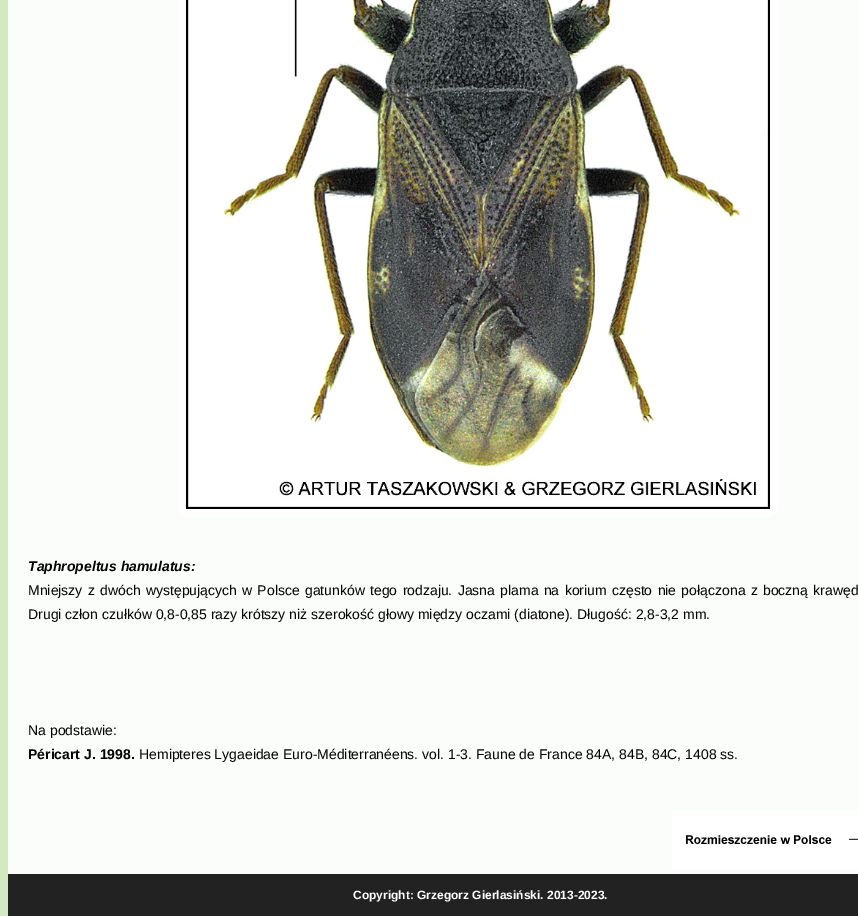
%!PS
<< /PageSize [858 916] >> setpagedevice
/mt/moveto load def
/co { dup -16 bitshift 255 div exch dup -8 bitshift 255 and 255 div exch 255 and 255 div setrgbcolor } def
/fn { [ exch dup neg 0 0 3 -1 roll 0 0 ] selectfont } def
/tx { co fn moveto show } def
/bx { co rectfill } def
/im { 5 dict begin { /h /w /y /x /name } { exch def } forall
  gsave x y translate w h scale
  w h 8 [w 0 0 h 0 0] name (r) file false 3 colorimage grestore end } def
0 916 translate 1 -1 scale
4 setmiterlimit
0 0 858 916 16#D4E8C1 bx
8 0 850 874 16#FAFDF9 bx
(media/1.raw) 178 0 600 517 im
(media/2.raw) 672 810 186 60 im
8 874 850 42 16#222222 bx
(Taphropeltus hamulatus:) 28 571 /LiberationSans-BoldItalic 14 16#000000 tx
/LiberationSans-Regular 14 fn
28 595 mt 1.4 0 32 (Mniejszy z dwóch występujących w Polsce gatunków tego rodzaju. Jasna plama na korium często nie połączona z boczną krawęd) widthshow
(Drugi człon czułków 0,8-0,85 razy krótszy niż szerokość głowy między oczami \(diatone\). Długość: 2,8-3,2 mm.) 28 619 /LiberationSans-Regular 14 16#000000 tx
(Na podstawie:) 28 735 /LiberationSans-Regular 14 16#000000 tx
(Péricart J. 1998.) 28 759 /LiberationSans-Bold 14 16#000000 tx
(Hemipteres Lygaeidae Euro-Méditerranéens. vol. 1-3. Faune de France 84A, 84B, 84C, 1408 ss.) 139 759 /LiberationSans-Regular 14 16#000000 tx
(Copyright: Grzegorz Gierlasiński. 2013-2023.) 353 899 /LiberationSans-Bold 12 16#FFFFFF tx
showpage
